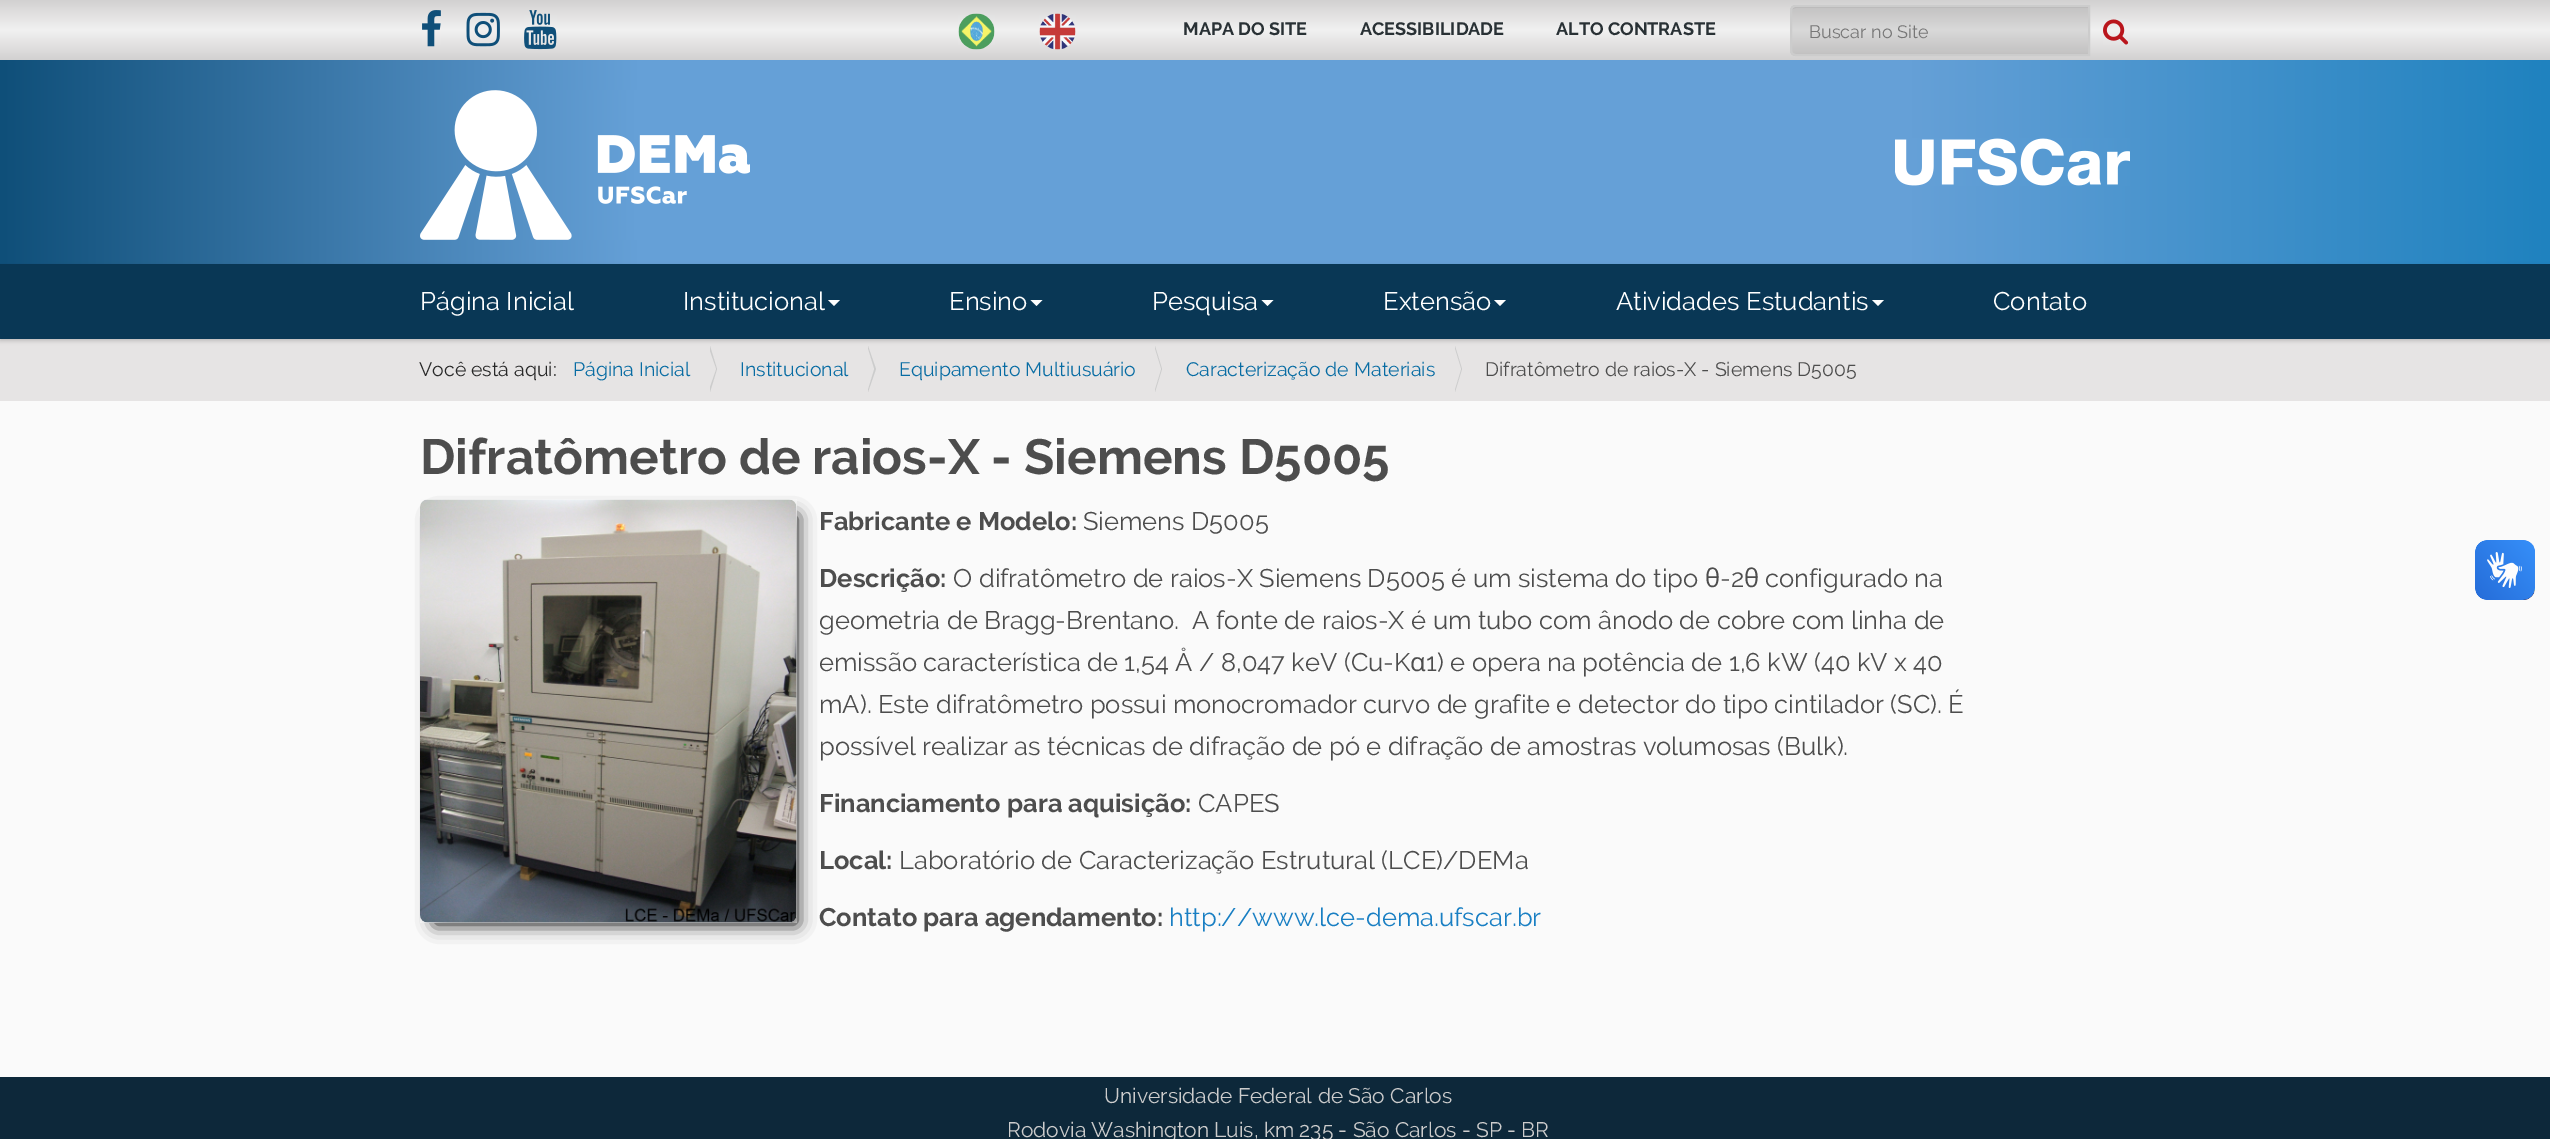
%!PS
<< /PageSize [2550 1139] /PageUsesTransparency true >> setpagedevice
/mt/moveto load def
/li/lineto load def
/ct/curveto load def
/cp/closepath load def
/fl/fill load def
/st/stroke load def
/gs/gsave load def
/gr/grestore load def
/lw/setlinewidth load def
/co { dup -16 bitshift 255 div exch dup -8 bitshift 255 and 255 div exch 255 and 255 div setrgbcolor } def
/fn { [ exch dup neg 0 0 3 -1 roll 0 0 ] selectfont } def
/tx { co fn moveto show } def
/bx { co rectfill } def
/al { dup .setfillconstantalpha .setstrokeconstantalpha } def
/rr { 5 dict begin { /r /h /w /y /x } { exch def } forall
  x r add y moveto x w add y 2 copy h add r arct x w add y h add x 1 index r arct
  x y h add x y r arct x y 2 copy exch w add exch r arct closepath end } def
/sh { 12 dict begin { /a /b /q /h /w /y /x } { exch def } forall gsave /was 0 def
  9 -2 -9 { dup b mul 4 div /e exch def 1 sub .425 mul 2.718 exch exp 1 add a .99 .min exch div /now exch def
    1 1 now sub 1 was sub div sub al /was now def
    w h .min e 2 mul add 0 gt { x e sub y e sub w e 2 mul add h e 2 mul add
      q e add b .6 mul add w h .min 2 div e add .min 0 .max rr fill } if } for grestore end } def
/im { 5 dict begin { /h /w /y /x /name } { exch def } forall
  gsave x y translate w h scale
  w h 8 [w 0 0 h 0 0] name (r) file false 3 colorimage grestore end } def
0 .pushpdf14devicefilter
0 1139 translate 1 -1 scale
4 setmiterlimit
0 0 2550 1139 16#FAFAFA bx
gs 0 0 mt 2550 0 li 2550 60 li 0 60 li cp clip newpath
<< /ShadingType 2 /ColorSpace /DeviceRGB /Coords [1275 0 1275 60] /Extend [true true] /Function << /FunctionType 3 /Domain [0 1] /Functions [<< /FunctionType 2 /Domain [0 1] /C0 [.824 .82 .82] /C1 [.886 .882 .882] /N 1 >> << /FunctionType 2 /Domain [0 1] /C0 [.886 .882 .882] /C1 [.945 .945 .945] /N 1 >> << /FunctionType 2 /Domain [0 1] /C0 [.945 .945 .945] /C1 [.886 .882 .882] /N 1 >> << /FunctionType 2 /Domain [0 1] /C0 [.886 .882 .882] /C1 [.824 .82 .82] /N 1 >>] /Bounds [.25 .5 .75] /Encode [0 1 0 1 0 1 0 1] >> >> shfill gr
(media/1.raw) 422 10 19 37 im
(media/2.raw) 466 12 34 35 im
(media/3.raw) 524 10 33 40 im
(media/4.raw) 958 13 37 37 im
(media/5.raw) 1039 13 37 37 im
0.1 al
16#000000 co
1796 5 mt 2090 5 li 2090 56 li 1796 56 li 1792.5 56 1790 53.5 1790 50 ct 1790 11 li 1790 7.5 1792.5 5 1796 5 ct cp fl
0.07 al
1796 8 mt 2088 8 li 2088 6 li 1796 6 li 1793 6 1791 8 1791 11 ct 1791 12 li 1791 10 1793 8 1796 8 ct cp fl
1 al
16#CCCCCC co
2 lw
1796 6 mt 2089 6 li 2089 55 li 1796 55 li 1793 55 1791 53 1791 50 ct 1791 11 li 1791 8 1793 6 1796 6 ct cp st
(media/6.raw) 2103 19 26 26 im
gs 0 60 mt 2550 60 li 2550 264 li 0 264 li cp clip newpath
<< /ShadingType 2 /ColorSpace /DeviceRGB /Coords [0 132 2550 132] /Extend [true true] /Function << /FunctionType 3 /Domain [0 1] /Functions [<< /FunctionType 2 /Domain [0 1] /C0 [.059 .31 .475] /C1 [.396 .627 .843] /N 1 >> << /FunctionType 2 /Domain [0 1] /C0 [.396 .627 .843] /C1 [.396 .627 .843] /N 1 >> << /FunctionType 2 /Domain [0 1] /C0 [.396 .627 .843] /C1 [.122 .51 .749] /N 1 >>] /Bounds [.25 .75] /Encode [0 1 0 1 0 1] >> >> shfill gr
(media/7.raw) 420 90 330 150 im
(media/8.raw) 1895 138 235 48 im
0 339 2550 62 16#E6E4E4 bx
16#000000 co
0 266 2550 75 0 2 .17 sh
0 264 2550 75 16#093755 bx
16#FFFFFF co
828 300 mt 840 300 li 834 306 li cp fl
1030.5 300 mt 1042.5 300 li 1036.5 306 li cp fl
1261.5 300 mt 1273.5 300 li 1267.5 306 li cp fl
1494 300 mt 1506 300 li 1500 306 li cp fl
1872 300 mt 1884 300 li 1878 306 li cp fl
16#CCCCCC co
710 392 mt 710 346 li 717 369 li cp fl
16#E6E4E4 co
708 392 mt 708 346 li 716 369 li cp fl
16#CCCCCC co
868 392 mt 868 346 li 876 369 li cp fl
16#E6E4E4 co
867 392 mt 867 346 li 874 369 li cp fl
16#CCCCCC co
1155 392 mt 1155 346 li 1162 369 li cp fl
16#E6E4E4 co
1154 392 mt 1154 346 li 1161 369 li cp fl
16#CCCCCC co
1455 392 mt 1455 346 li 1462 369 li cp fl
16#E6E4E4 co
1454 392 mt 1454 346 li 1461 369 li cp fl
16#000000 co
435 516 362 408 0 9 1 sh
(media/9.raw) 420 499 377 424 im
(media/10.raw) 2475 540 60 60 im
(media/11.raw) 2475 540 60 60 im
0 1077 2550 62 16#0D283A bx
(MAPA DO SITE) 1183 35 /Raleway-Bold 18 16#293135 tx
(ACESSIBILIDADE) 1360 35 /Raleway-Bold 18 16#293135 tx
(ALTO CONTRASTE) 1556 35 /Raleway-Bold 18 16#293135 tx
(Buscar no Site) 1809 38 /Raleway-Regular 18 16#777777 tx
(Página Inicial) 420 310 /Raleway-Regular 25.5 16#FFFFFF tx
(Institucional) 683 310 /Raleway-Regular 25.5 16#FFFFFF tx
(Ensino) 949 310 /Raleway-Regular 25.5 16#FFFFFF tx
(Pesquisa) 1152 310 /Raleway-Regular 25.5 16#FFFFFF tx
(Extensão) 1383 310 /Raleway-Regular 25.5 16#FFFFFF tx
(Atividades Estudantis) 1616 310 /Raleway-Regular 25.5 16#FFFFFF tx
(Contato) 1993 310 /Raleway-Regular 25.5 16#FFFFFF tx
(Você está aqui:) 419 376 /Raleway-Regular 19.5 16#282828 tx
(Página Inicial) 573 376 /Raleway-Regular 19.5 16#086CA3 tx
(Institucional) 740 376 /Raleway-Regular 19.5 16#086CA3 tx
(Equipamento Multiusuário) 899 376 /Raleway-Regular 19.5 16#086CA3 tx
(Caracterização de Materiais) 1186 376 /Raleway-Regular 19.5 16#086CA3 tx
(Difratômetro de raios-X - Siemens D5005) 1485 376 /Raleway-Regular 19.5 16#4D4D4D tx
(Difratômetro de raios-X - Siemens D5005) 420 474 /Raleway-Bold 49.5 16#4D4D4D tx
(Fabricante e Modelo:) 819 530 /Raleway-Bold 25.5 16#4D4D4D tx
(Siemens D5005) 1083 530 /Raleway-Regular 25.5 16#4D4D4D tx
(Descrição:) 819 587 /Raleway-Bold 25.5 16#4D4D4D tx
(O difratômetro de raios-X Siemens D5005 é um sistema do tipo) 953 587 /Raleway-Regular 25.5 16#4D4D4D tx
(θ) 1705 587 /OpenSans-Regular 25.5 16#4D4D4D tx
(-2) 1720 587 /Raleway-Regular 25.5 16#4D4D4D tx
(θ) 1744 587 /OpenSans-Regular 25.5 16#4D4D4D tx
(configurado na) 1765 587 /Raleway-Regular 25.5 16#4D4D4D tx
(geometria de Bragg-Brentano.  A fonte de raios-X é um tubo com ânodo de cobre com linha de) 819 629 /Raleway-Regular 25.5 16#4D4D4D tx
(emissão característica de 1,54 Å / 8,047 keV \(Cu-K) 819 671 /Raleway-Regular 25.5 16#4D4D4D tx
(α) 1410 671 /OpenSans-Regular 25.5 16#4D4D4D tx
(1\) e opera na potência de 1,6 kW \(40 kV x 40) 1426 671 /Raleway-Regular 25.5 16#4D4D4D tx
(mA\). Este difratômetro possui monocromador curvo de grafite e detector do tipo cintilador \(SC\). É) 819 713 /Raleway-Regular 25.5 16#4D4D4D tx
(possível realizar as técnicas de difração de pó e difração de amostras volumosas \(Bulk\).) 819 755 /Raleway-Regular 25.5 16#4D4D4D tx
(Financiamento para aquisição:) 819 812 /Raleway-Bold 25.5 16#4D4D4D tx
(CAPES) 1198 812 /Raleway-Regular 25.5 16#4D4D4D tx
(Local:) 819 869 /Raleway-Bold 25.5 16#4D4D4D tx
(Laboratório de Caracterização Estrutural \(LCE\)/DEMa) 899 869 /Raleway-Regular 25.5 16#4D4D4D tx
(Contato para agendamento:) 819 926 /Raleway-Bold 25.5 16#4D4D4D tx
(http://www.lce-dema.ufscar.br) 1169 926 /Raleway-Regular 25.5 16#197FC3 tx
(Universidade Federal de São Carlos) 1104 1103 /Raleway-Regular 21 16#CCCCCC tx
(Rodovia Washington Luis, km 235 - São Carlos - SP - BR) 1007 1137 /Raleway-Regular 21 16#CCCCCC tx
.poppdf14devicefilter showpage
